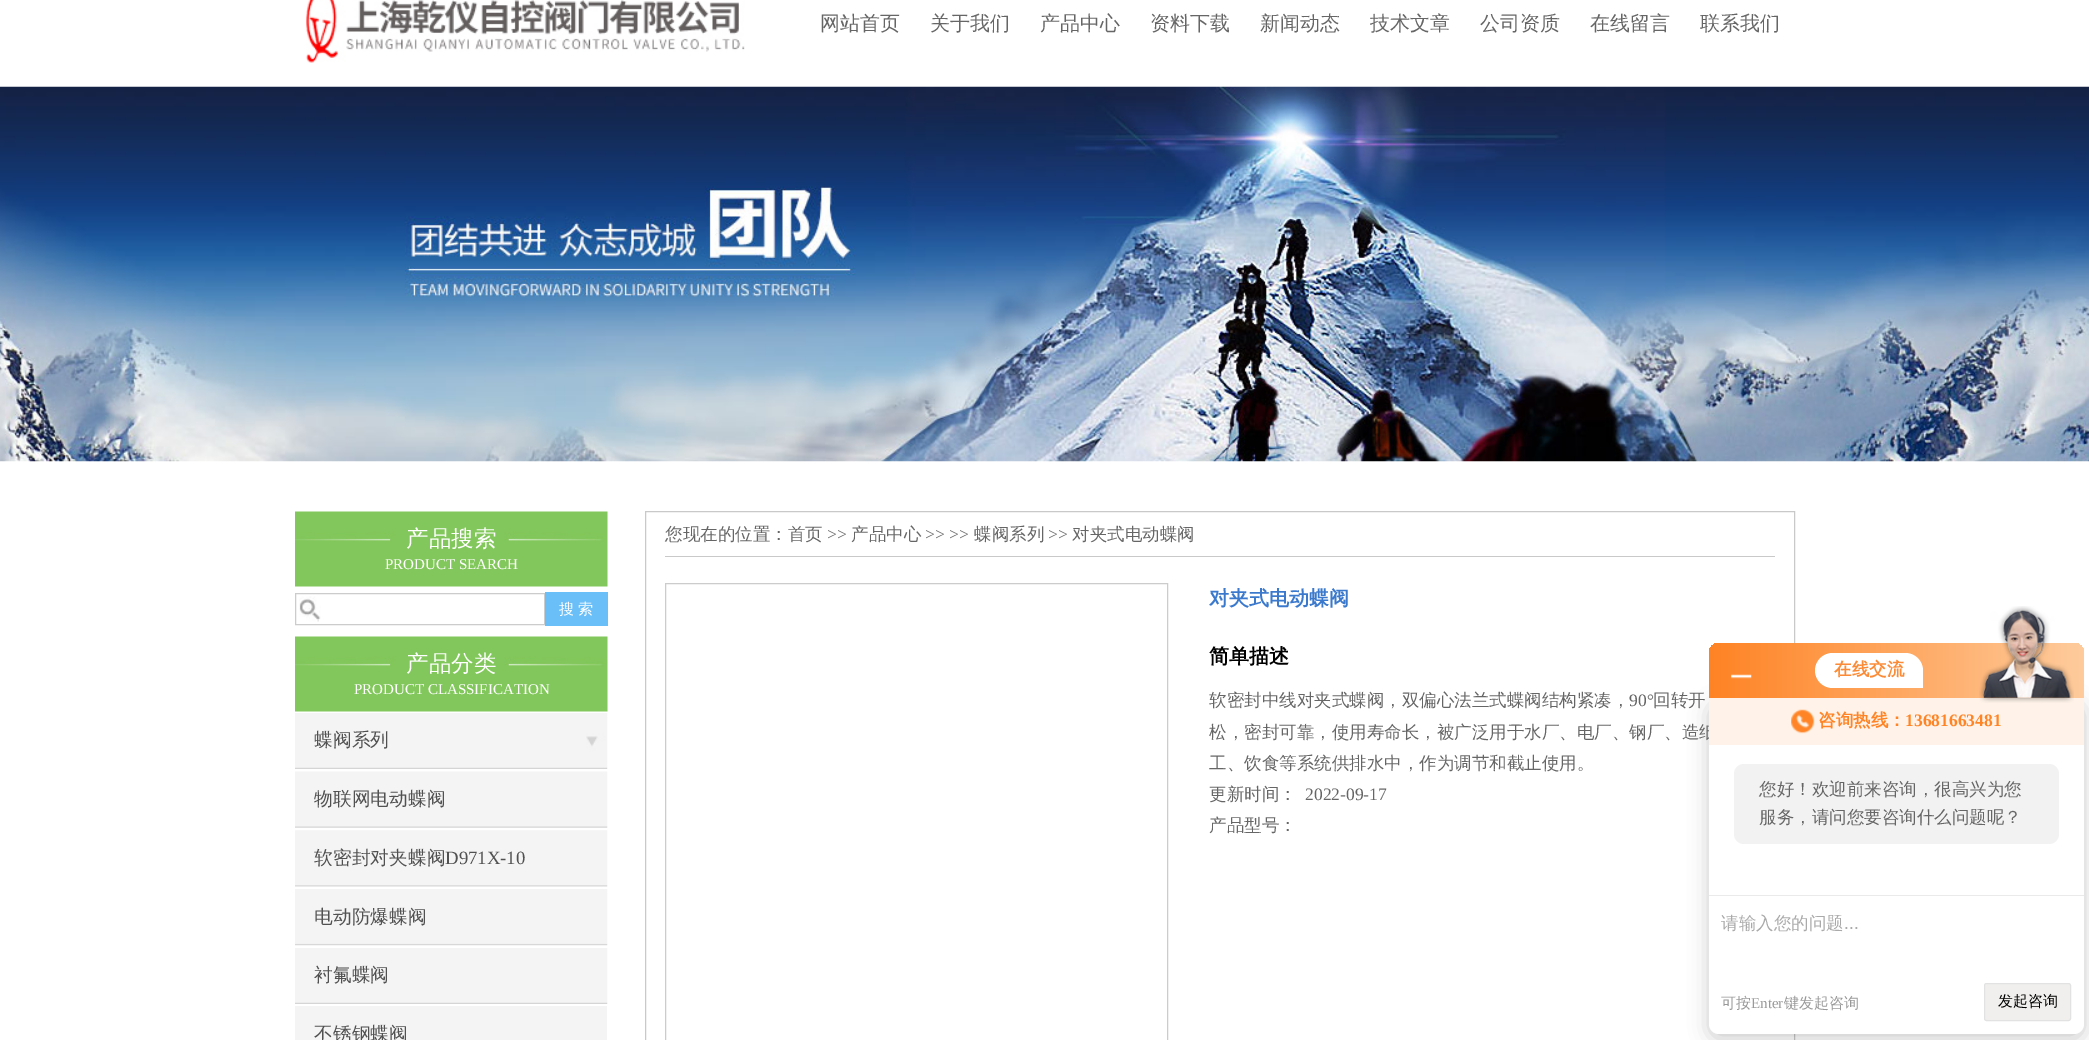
%!PS
<< /PageSize [2089 1040] /PageUsesTransparency true >> setpagedevice
/mt/moveto load def
/li/lineto load def
/ct/curveto load def
/cp/closepath load def
/fl/fill load def
/st/stroke load def
/gs/gsave load def
/gr/grestore load def
/co { dup -16 bitshift 255 div exch dup -8 bitshift 255 and 255 div exch 255 and 255 div setrgbcolor } def
/fn { [ exch dup neg 0 0 3 -1 roll 0 0 ] selectfont } def
/tx { co fn moveto show } def
/bx { co rectfill } def
/al { dup .setfillconstantalpha .setstrokeconstantalpha } def
/rr { 5 dict begin { /r /h /w /y /x } { exch def } forall
  x r add y moveto x w add y 2 copy h add r arct x w add y h add x 1 index r arct
  x y h add x y r arct x y 2 copy exch w add exch r arct closepath end } def
/sh { 12 dict begin { /a /b /q /h /w /y /x } { exch def } forall gsave /was 0 def
  9 -2 -9 { dup b mul 4 div /e exch def 1 sub .425 mul 2.718 exch exp 1 add a .99 .min exch div /now exch def
    1 1 now sub 1 was sub div sub al /was now def
    w h .min e 2 mul add 0 gt { x e sub y e sub w e 2 mul add h e 2 mul add
      q e add b .6 mul add w h .min 2 div e add .min 0 .max rr fill } if } for grestore end } def
/im { 5 dict begin { /h /w /y /x /name } { exch def } forall
  gsave x y translate w h scale
  w h 8 [w 0 0 h 0 0] name (r) file false 3 colorimage grestore end } def
0 .pushpdf14devicefilter
0 1040 translate 1 -1 scale
4 setmiterlimit
0 0 2089 1040 16#FFFFFF bx
(media/1.raw) 306 0 439 63 im
(media/2.raw) 0 86 2089 376 im
(media/3.raw) 295 511 313 76 im
(media/4.raw) 299 596 22 26 im
16#CCCCCC co
295.5 593.5 249 31 rectstroke
545 592 63 34 16#6BBFF9 bx
(media/3.raw) 295 636 313 76 im
(media/5.raw) 295 713 313 56 im
(media/6.raw) 295 771 313 57 im
(media/7.raw) 295 830 313 57 im
(media/8.raw) 295 889 313 57 im
(media/9.raw) 295 948 313 56 im
295 1006 312 34 16#F4F4F4 bx
16#C9C9C9 co
645.5 511.5 1149 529 rectstroke
665 556 1110 1 16#C9C9C9 bx
16#CCCCCC co
665.5 583.5 502 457 rectstroke
16#000000 co
1709 703 375 336 10 10 .2 sh
gs 1719 643 mt 2074 643 li 2079.5 643 2084 647.5 2084 653 ct 2084 698 li 1709 698 li 1709 653 li 1709 647.5 1713.5 643 1719 643 ct cp clip newpath
<< /ShadingType 2 /ColorSpace /DeviceRGB /Coords [1709 670 2084 670] /Extend [true true] /Function << /FunctionType 2 /Domain [0 1] /C0 [1 .514 .141] /C1 [.996 .796 .612] /N 1 >> >> shfill gr
(media/10.raw) 1731 674 21 5 im
16#FFFFFF co
1832.5 653 mt 1905.5 653 li 1915 653 1923 661 1923 670.5 ct 1923 688 li 1832.5 688 li 1823 688 1815 680 1815 670.5 ct 1815 661 1823 653 1832.5 653 ct cp fl
(网站首页) 820 30 /WenQuanYiZenHei-Medium 20 16#666666 tx
(关于我们) 930 30 /WenQuanYiZenHei-Medium 20 16#666666 tx
(产品中心) 1040 30 /WenQuanYiZenHei-Medium 20 16#666666 tx
(资料下载) 1150 30 /WenQuanYiZenHei-Medium 20 16#666666 tx
(新闻动态) 1260 30 /WenQuanYiZenHei-Medium 20 16#666666 tx
(技术文章) 1370 30 /WenQuanYiZenHei-Medium 20 16#666666 tx
(公司资质) 1480 30 /WenQuanYiZenHei-Medium 20 16#666666 tx
(在线留言) 1590 30 /WenQuanYiZenHei-Medium 20 16#666666 tx
(联系我们) 1700 30 /WenQuanYiZenHei-Medium 20 16#666666 tx
(产品搜索) 406 546 /WenQuanYiZenHei-Medium 22.5 16#FFFFFF tx
(PRODUCT SEARCH) 385 569 /LiberationSerif-Regular 15 16#FFFFFF tx
(搜 索) 559 614 /WenQuanYiZenHei-Medium 15 16#FFFFFF tx
(产品分类) 406 671 /WenQuanYiZenHei-Medium 22.5 16#FFFFFF tx
(PRODUCT CLASSIFICATION) 354 694 /LiberationSerif-Regular 15 16#FFFFFF tx
(蝶阀系列) 314 746 /WenQuanYiZenHei-Medium 18.75 16#515151 tx
(物联网电动蝶阀) 314 805 /WenQuanYiZenHei-Medium 18.75 16#515151 tx
(软密封对夹蝶阀) 314 864 /WenQuanYiZenHei-Medium 18.75 16#515151 tx
(D971X-10) 445 864 /LiberationSerif-Regular 18.75 16#515151 tx
(电动防爆蝶阀) 314 923 /WenQuanYiZenHei-Medium 18.75 16#515151 tx
(衬氟蝶阀) 314 981 /WenQuanYiZenHei-Medium 18.75 16#515151 tx
(不锈钢蝶阀) 314 1040 /WenQuanYiZenHei-Medium 18.75 16#515151 tx
(您现在的位置：首页) 665 540 /WenQuanYiZenHei-Medium 17.5 16#666666 tx
(>>) 827 540 /LiberationSerif-Regular 17.5 16#666666 tx
(产品中心) 851 540 /WenQuanYiZenHei-Medium 17.5 16#666666 tx
(>> >>) 925 540 /LiberationSerif-Regular 17.5 16#666666 tx
(蝶阀系列) 974 540 /WenQuanYiZenHei-Medium 17.5 16#666666 tx
(>>) 1048 540 /LiberationSerif-Regular 17.5 16#666666 tx
(对夹式电动蝶阀) 1072 540 /WenQuanYiZenHei-Medium 17.5 16#666666 tx
(对夹式电动蝶阀) 1209 605 /WenQuanYiZenHei-Bold 20 16#3B79CD tx
(简单描述) 1209 663 /WenQuanYiZenHei-Bold 20 16#000000 tx
(软密封中线对夹式蝶阀，双偏心法兰式蝶阀结构紧凑，) 1209 706 /WenQuanYiZenHei-Medium 17.5 16#666666 tx
(90°) 1629 706 /LiberationSerif-Regular 17.5 16#666666 tx
(回转开) 1653 706 /WenQuanYiZenHei-Medium 17.5 16#666666 tx
(松，密封可靠，使用寿命长，被广泛用于水厂、电厂、钢厂、造纸) 1209 738 /WenQuanYiZenHei-Medium 17.5 16#666666 tx
(工、饮食等系统供排水中，作为调节和截止使用。) 1209 769 /WenQuanYiZenHei-Medium 17.5 16#666666 tx
(更新时间：) 1209 800 /WenQuanYiZenHei-Medium 17.5 16#666666 tx
(2022-09-17) 1305 800 /LiberationSerif-Regular 17.5 16#666666 tx
(产品型号：) 1209 831 /WenQuanYiZenHei-Medium 17.5 16#666666 tx
(在线交流) 1834 675 /WenQuanYiZenHei-Bold 17.5 16#FB8B36 tx
16#FFFFFF co
1709 698 mt 2084 698 li 2084 1024 li 2084 1029.5 2079.5 1034 2074 1034 ct 1719 1034 li 1713.5 1034 1709 1029.5 1709 1024 ct cp fl
1709 698 375 47 16#FFF3E9 bx
(media/11.raw) 1979 606 95 97 im
(media/12.raw) 1791 709 24 25 im
(咨询热线：) 1818 726 /WenQuanYiZenHei-Bold 17.5 16#FF8426 tx
(13681663481) 1905 726 /LiberationSerif-Bold 17.5 16#FF8426 tx
16#F2F2F2 co
1734 764 325 80 10 rr fl
(您好！欢迎前来咨询，很高兴为您) 1759 795 /WenQuanYiZenHei-Medium 17.5 16#666666 tx
(服务，请问您要咨询什么问题呢？) 1759 823 /WenQuanYiZenHei-Medium 17.5 16#666666 tx
1709 895 375 1 16#EAEAEA bx
(请输入您的问题) 1721 929 /WenQuanYiZenHei-Medium 17.5 16#AAAAAA tx
(...) 1844 929 /LiberationSans-Regular 17.5 16#AAAAAA tx
(可按) 1721 1008 /WenQuanYiZenHei-Medium 15 16#999999 tx
(Enter) 1751 1008 /LiberationSerif-Regular 15 16#999999 tx
(键发起咨询) 1784 1008 /WenQuanYiZenHei-Medium 15 16#999999 tx
16#F0EFED co
1984.5 983.5 86 37 2 rr gs fl gr
16#E2E2E2 co
st
(发起咨询) 1998 1006 /WenQuanYiZenHei-Medium 15 16#000000 tx
.poppdf14devicefilter showpage
